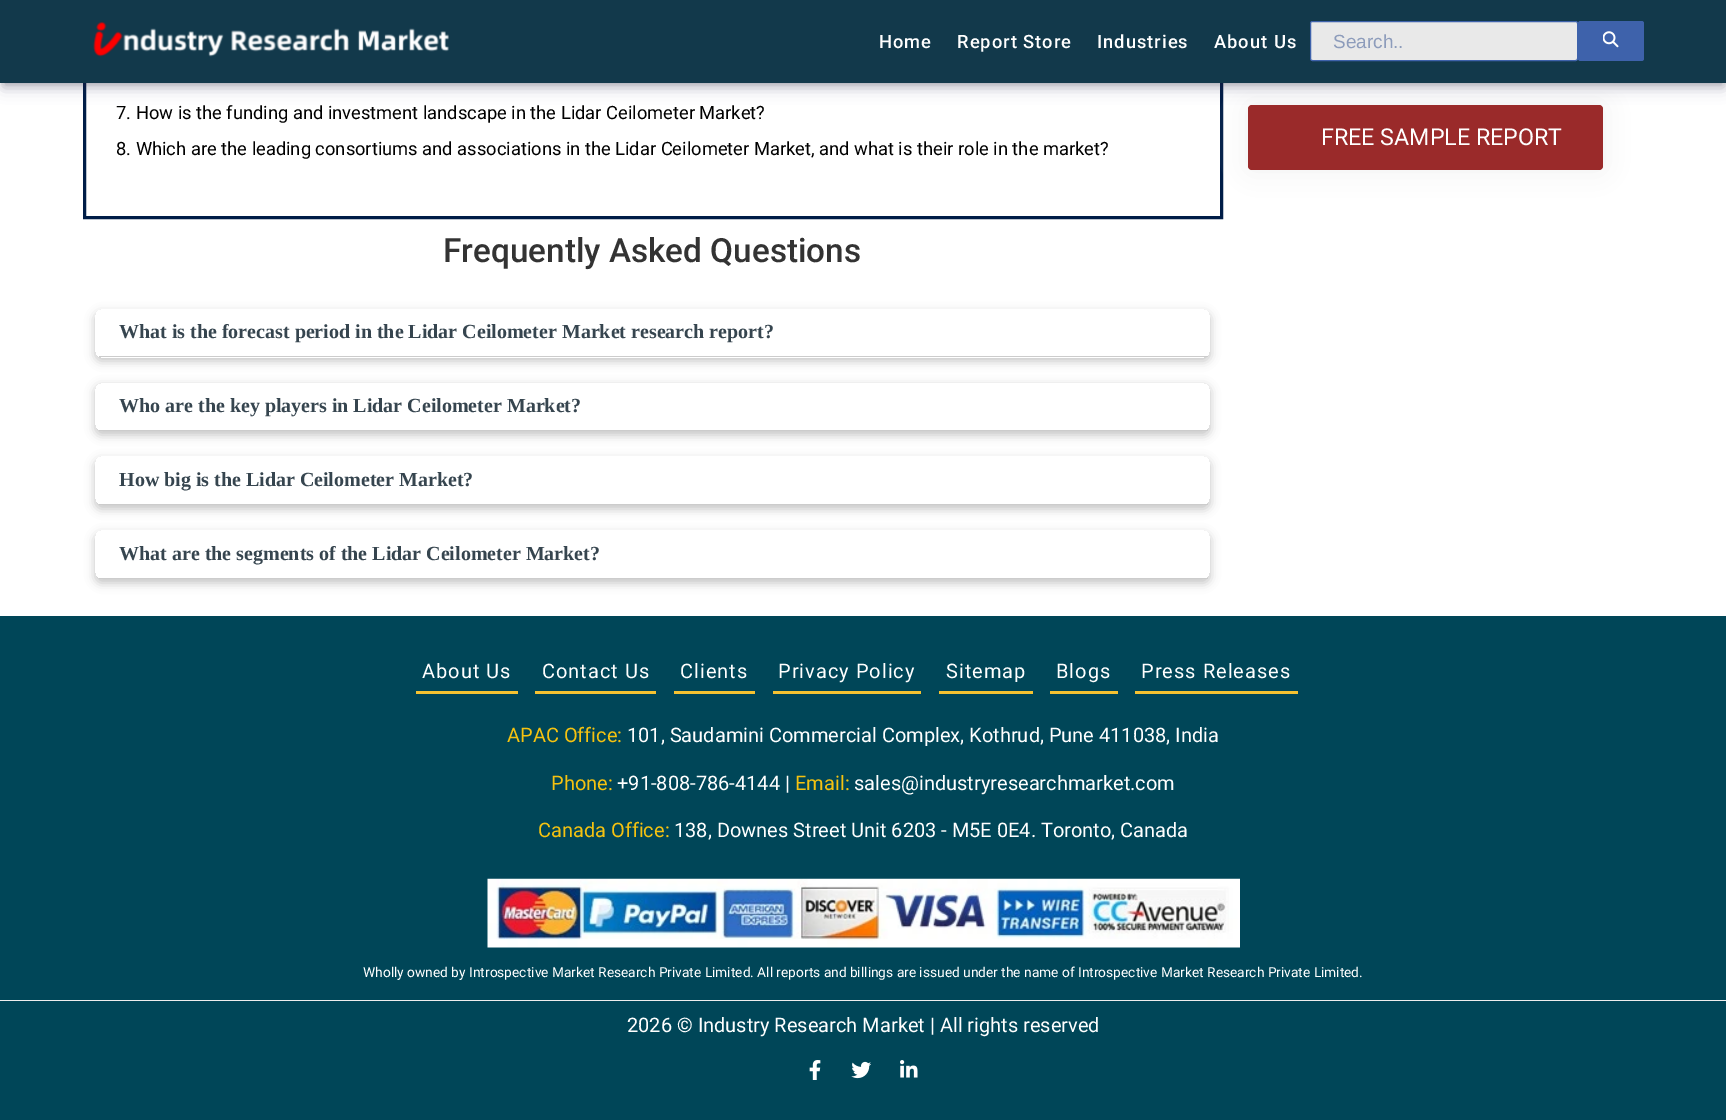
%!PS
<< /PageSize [1726 1120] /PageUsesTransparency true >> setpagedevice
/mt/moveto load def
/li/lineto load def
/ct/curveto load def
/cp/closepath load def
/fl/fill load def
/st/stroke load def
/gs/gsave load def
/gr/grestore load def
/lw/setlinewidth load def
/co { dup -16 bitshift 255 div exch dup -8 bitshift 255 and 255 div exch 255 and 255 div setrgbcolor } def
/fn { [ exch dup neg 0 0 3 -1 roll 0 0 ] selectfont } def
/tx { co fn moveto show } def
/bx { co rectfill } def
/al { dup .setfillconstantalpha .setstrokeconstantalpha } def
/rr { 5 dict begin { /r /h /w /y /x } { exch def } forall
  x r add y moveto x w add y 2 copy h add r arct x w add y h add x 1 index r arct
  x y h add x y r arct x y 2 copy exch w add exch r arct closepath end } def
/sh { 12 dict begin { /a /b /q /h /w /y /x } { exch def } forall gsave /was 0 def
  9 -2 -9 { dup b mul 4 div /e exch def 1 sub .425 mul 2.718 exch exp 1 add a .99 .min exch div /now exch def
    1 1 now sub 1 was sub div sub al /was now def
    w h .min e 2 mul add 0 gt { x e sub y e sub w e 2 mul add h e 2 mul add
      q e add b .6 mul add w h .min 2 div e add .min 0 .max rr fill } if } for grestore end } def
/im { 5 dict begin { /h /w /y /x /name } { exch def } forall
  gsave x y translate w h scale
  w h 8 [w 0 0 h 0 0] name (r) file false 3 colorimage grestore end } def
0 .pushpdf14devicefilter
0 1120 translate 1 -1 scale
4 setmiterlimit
0 0 1726 1120 16#FFFFFF bx
16#001D47 co
3 lw
84.5 -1.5 1137 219 rectstroke
16#000000 co
4 8 1719 75 0 4.5 .3 sh
16#EEEEEE co
1248 105 355 65 4 12.5 1 sh
16#9A2A2A co
1248 105 355 65 4 rr fl
16#32325D co
3 10 1721 78 0 7.5 .25 sh
0 0 1726 83 16#12394B bx
(media/1.raw) 93 21 356 36 im
16#E9E9E9 co
1310.5 21.5 267 39 2 rr gs fl gr
16#3E62AB co
1 lw
st
1578 21 66 40 2.5 rr fl
(media/2.raw) 1603 31 16 17 im
gs
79 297 mt 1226 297 li 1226 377 li 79 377 li cp 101 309 mt 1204 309 li 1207.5 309 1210 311.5 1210 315 ct 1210 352 li 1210 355.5 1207.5 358 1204 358 ct 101 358 li 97.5 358 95 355.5 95 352 ct 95 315 li 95 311.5 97.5 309 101 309 ct cp eoclip newpath
16#000000 co
95 313 1115 48 6 5 .24 sh
gr
99 356 1109 1 16#CCCCCC bx
gs
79 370 mt 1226 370 li 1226 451 li 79 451 li cp 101 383 mt 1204 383 li 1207.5 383 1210 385.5 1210 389 ct 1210 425 li 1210 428.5 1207.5 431 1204 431 ct 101 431 li 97.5 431 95 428.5 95 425 ct 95 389 li 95 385.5 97.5 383 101 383 ct cp eoclip newpath
16#000000 co
95 386 1115 49 6 5 .24 sh
gr
99 430 1109 1 16#CCCCCC bx
gs
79 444 mt 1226 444 li 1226 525 li 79 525 li cp 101 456 mt 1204 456 li 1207.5 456 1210 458.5 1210 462 ct 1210 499 li 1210 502.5 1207.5 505 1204 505 ct 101 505 li 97.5 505 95 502.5 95 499 ct 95 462 li 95 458.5 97.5 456 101 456 ct cp eoclip newpath
16#000000 co
95 460 1115 49 6 5 .24 sh
gr
99 504 1109 1 16#CCCCCC bx
gs
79 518 mt 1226 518 li 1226 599 li 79 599 li cp 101 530 mt 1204 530 li 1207.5 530 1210 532.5 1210 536 ct 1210 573 li 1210 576.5 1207.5 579 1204 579 ct 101 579 li 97.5 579 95 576.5 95 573 ct 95 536 li 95 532.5 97.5 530 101 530 ct cp eoclip newpath
16#000000 co
95 534 1115 49 6 5 .24 sh
gr
99 578 1109 1 16#CCCCCC bx
0 616 1726 504 16#004658 bx
416 691 102 3 16#F5C231 bx
535 691 121 3 16#F5C231 bx
674 691 81 3 16#F5C231 bx
773 691 148 3 16#F5C231 bx
939 691 94 3 16#F5C231 bx
1050 691 68 3 16#F5C231 bx
1135 691 163 3 16#F5C231 bx
(media/3.raw) 487 878 753 70 im
0 1000 1726 1 16#EEEEEE bx
(media/4.raw) 809 1060 12 20 im
(media/5.raw) 851 1061 20 18 im
(media/6.raw) 900 1060 18 18 im
/Roboto-Medium 18.33 fn
16#FFFFFF co
879 48 mt 1 0 (Home) ashow
957 48 mt 1 0 (Report Store) ashow
1097 48 mt 1 0 (Industries) ashow
1214 48 mt 1 0 (About Us) ashow
(Search..) 1333 48 /LiberationSans-Regular 19 16#8D9CBB tx
(7. How is the funding and investment landscape in the Lidar Ceilometer Market?) 116 119 /Roboto-Regular 18.33 16#000000 tx
(8. Which are the leading consortiums and associations in the Lidar Ceilometer Market, and what is their role in the market?) 116 155 /Roboto-Regular 18.33 16#000000 tx
(Frequently Asked Questions) 443 262 /Roboto-Medium 33.3 16#333333 tx
(What is the forecast period in the Lidar Ceilometer Market research report?) 119 338 /LiberationSerif-Bold 20 16#36454F tx
(Who are the key players in Lidar Ceilometer Market?) 119 412 /LiberationSerif-Bold 20 16#36454F tx
(How big is the Lidar Ceilometer Market?) 119 486 /LiberationSerif-Bold 20 16#36454F tx
(What are the segments of the Lidar Ceilometer Market?) 119 560 /LiberationSerif-Bold 20 16#36454F tx
(FREE SAMPLE REPORT) 1321 145 /Roboto-Regular 23.25 16#FFFFFF tx
/Roboto-Regular 20 fn
422 678 mt 1 0 (About Us) ashow
542 678 mt 1 0 (Contact Us) ashow
680 678 mt 1 0 (Clients) ashow
778 678 mt 1 0 (Privacy Policy) ashow
946 678 mt 1 0 (Sitemap) ashow
1056 678 mt 1 0 (Blogs) ashow
1141 678 mt 1 0 (Press Releases) ashow
(APAC Office:) 507 742 /Roboto-Regular 20 16#F5C210 tx
(101, Saudamini Commercial Complex, Kothrud, Pune 411038, India) 627 742 /Roboto-Regular 20 16#FFFFFF tx
(Phone:) 551 790 /Roboto-Regular 20 16#F5C210 tx
(+91-808-786-4144 |) 617 790 /Roboto-Regular 20 16#FFFFFF tx
(Email:) 795 790 /Roboto-Regular 20 16#F5C210 tx
(sales@industryresearchmarket.com) 854 790 /Roboto-Regular 20 16#FFFFFF tx
(Canada Office:) 538 837 /Roboto-Regular 20 16#F5C210 tx
(138, Downes Street Unit 6203 - M5E 0E4. Toronto, Canada) 674 837 /Roboto-Regular 20 16#FFFFFF tx
(Wholly owned by Introspective Market Research Private Limited. All reports and billings are issued under the name of Introspective Market Research Private Limited.) 363 977 /Roboto-Regular 13.75 16#FFFFFF tx
(2026 © Industry Research Market | All rights reserved) 627 1032 /Roboto-Regular 20 16#FFFFFF tx
.poppdf14devicefilter showpage
